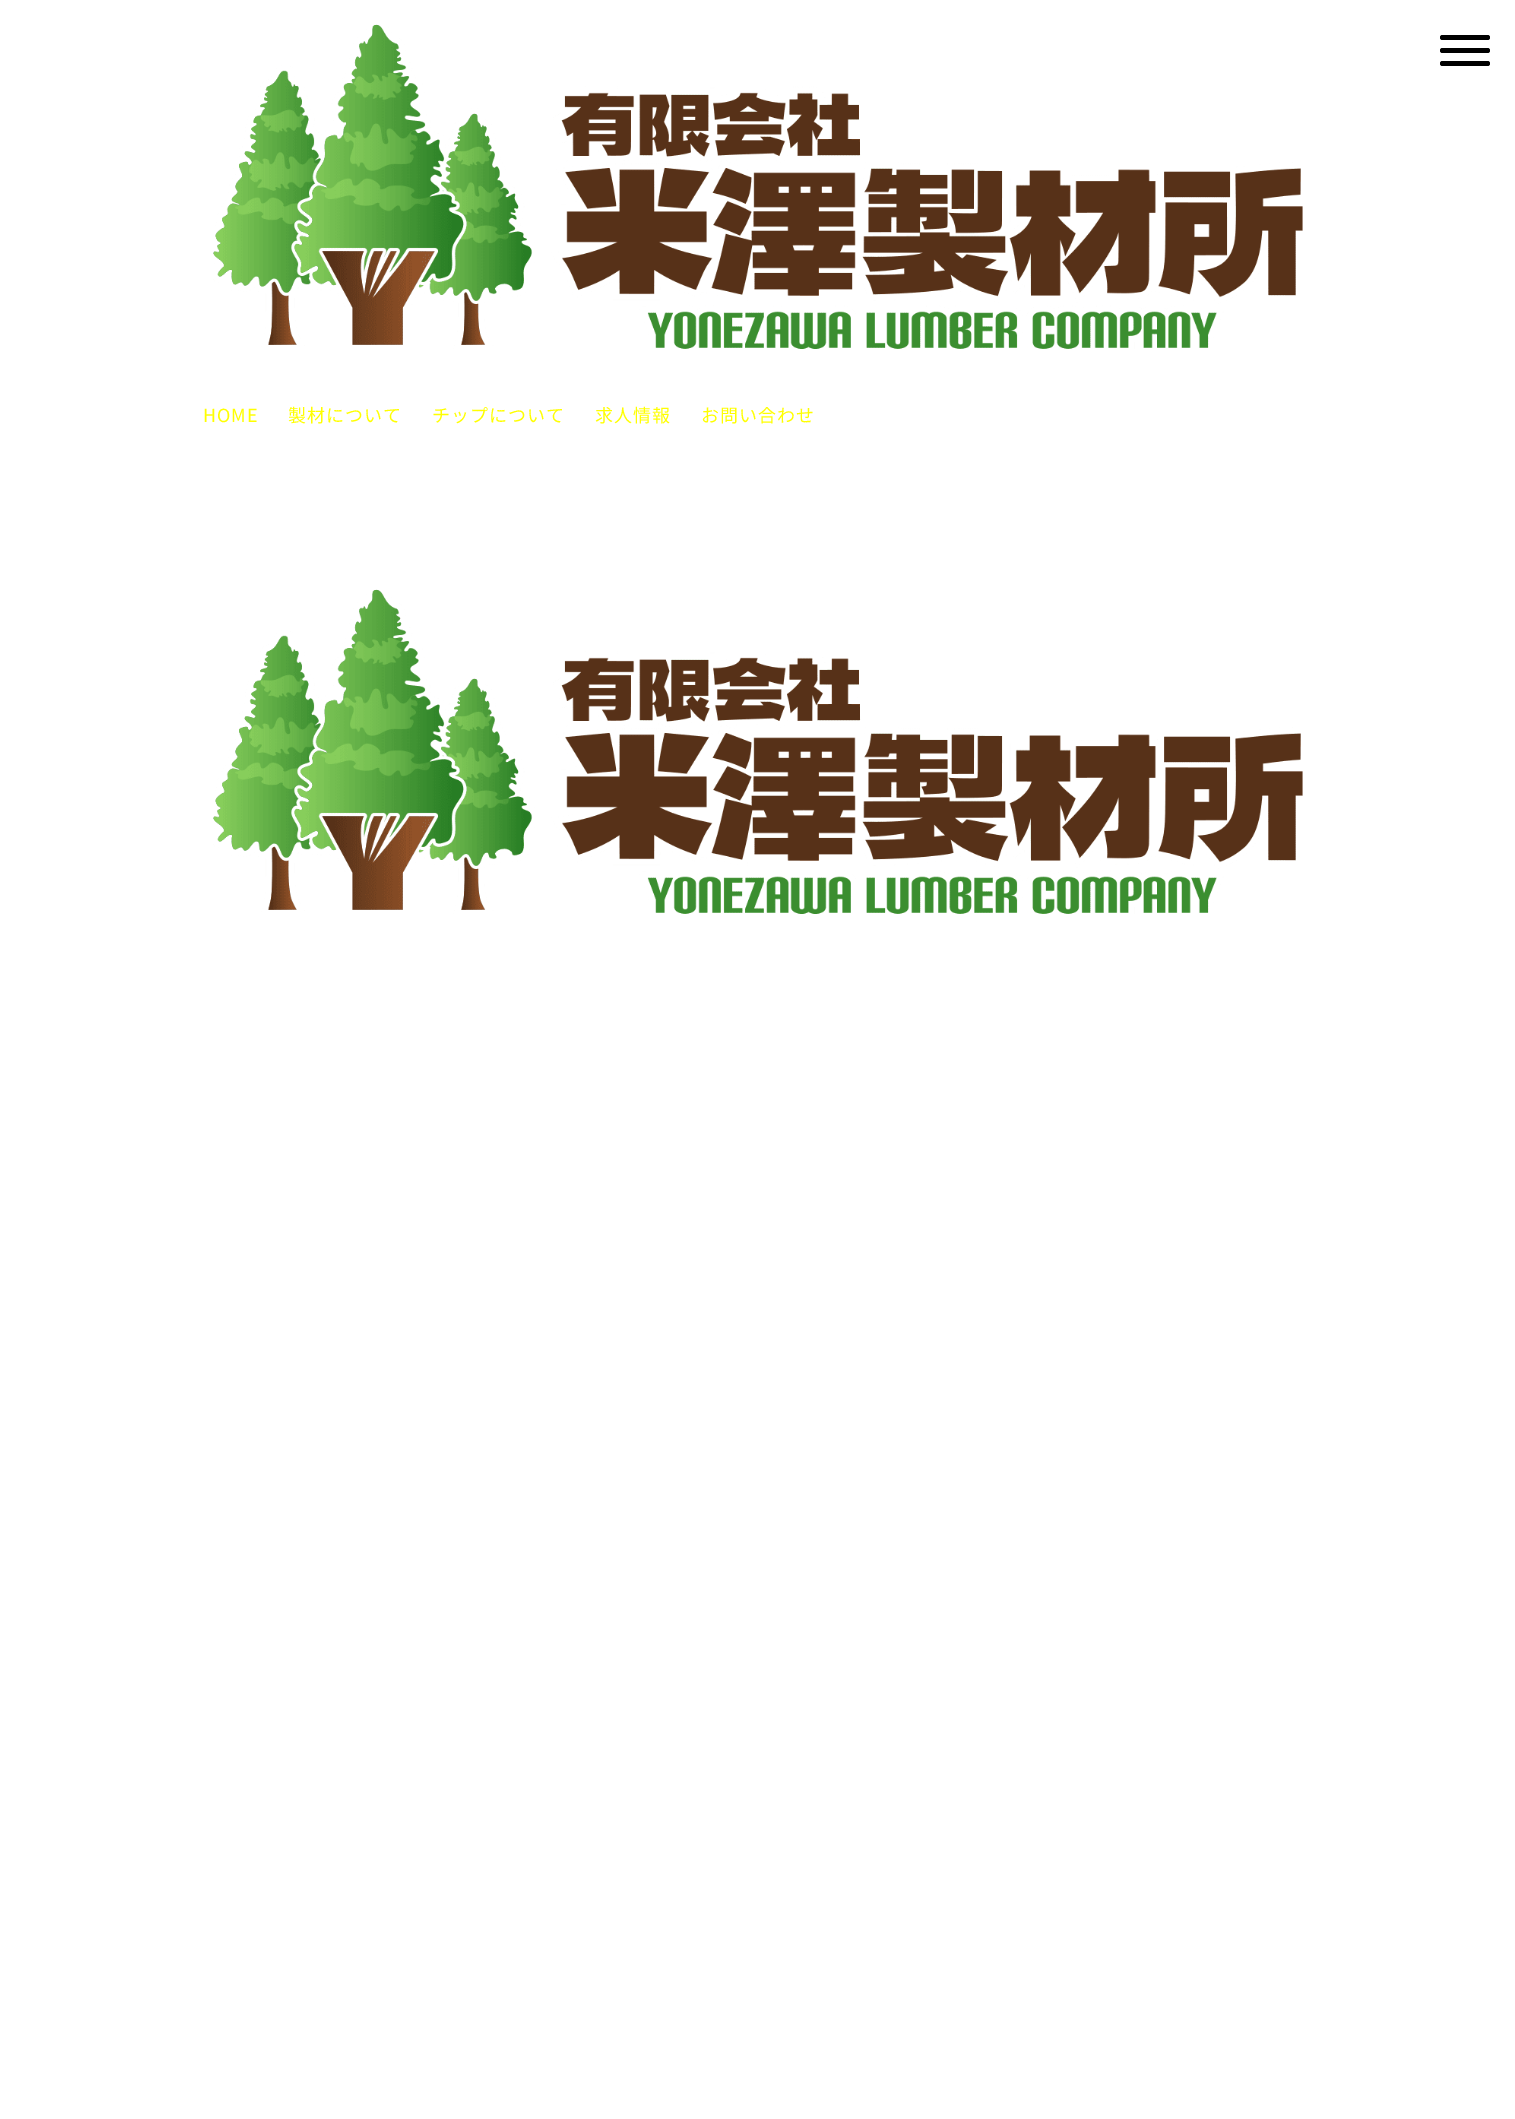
%!PS
<< /PageSize [1515 2119] >> setpagedevice
/mt/moveto load def
/fl/fill load def
/co { dup -16 bitshift 255 div exch dup -8 bitshift 255 and 255 div exch 255 and 255 div setrgbcolor } def
/fn { [ exch dup neg 0 0 3 -1 roll 0 0 ] selectfont } def
/bx { co rectfill } def
/rr { 5 dict begin { /r /h /w /y /x } { exch def } forall
  x r add y moveto x w add y 2 copy h add r arct x w add y h add x 1 index r arct
  x y h add x y r arct x y 2 copy exch w add exch r arct closepath end } def
/im { 5 dict begin { /h /w /y /x /name } { exch def } forall
  gsave x y translate w h scale
  w h 8 [w 0 0 h 0 0] name (r) file false 3 colorimage grestore end } def
0 2119 translate 1 -1 scale
4 setmiterlimit
0 0 1515 2119 16#FFFFFF bx
16#000000 co
1440 35 50 5 2.5 rr fl
1440 48 50 5 2.5 rr fl
1440 61 50 5 2.5 rr fl
(media/1.raw) 213 24 1090 325 im
(media/2.raw) 213 589 1090 325 im
/NotoSansJP-Regular 18 fn
16#FFFF00 co
203 422 mt 1 0 (HOME) ashow
288 422 mt 1 0 (製材について) ashow
432 422 mt 1 0 (チップについて) ashow
595 422 mt 1 0 (求人情報) ashow
701 422 mt 1 0 (お問い合わせ) ashow
showpage
